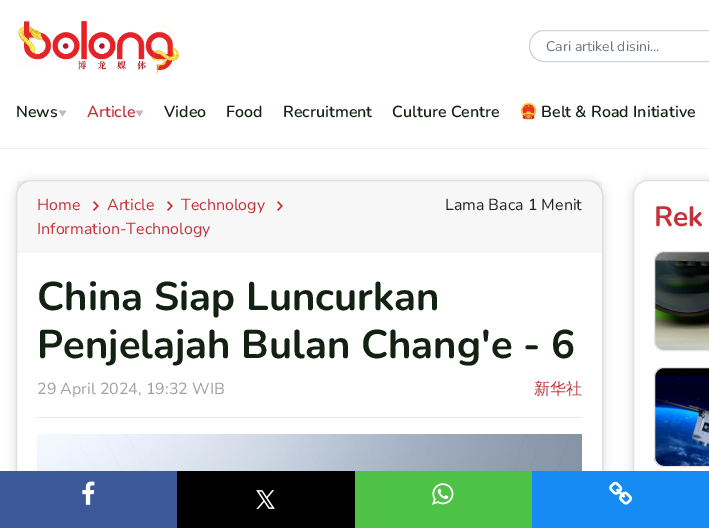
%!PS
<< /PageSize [709 528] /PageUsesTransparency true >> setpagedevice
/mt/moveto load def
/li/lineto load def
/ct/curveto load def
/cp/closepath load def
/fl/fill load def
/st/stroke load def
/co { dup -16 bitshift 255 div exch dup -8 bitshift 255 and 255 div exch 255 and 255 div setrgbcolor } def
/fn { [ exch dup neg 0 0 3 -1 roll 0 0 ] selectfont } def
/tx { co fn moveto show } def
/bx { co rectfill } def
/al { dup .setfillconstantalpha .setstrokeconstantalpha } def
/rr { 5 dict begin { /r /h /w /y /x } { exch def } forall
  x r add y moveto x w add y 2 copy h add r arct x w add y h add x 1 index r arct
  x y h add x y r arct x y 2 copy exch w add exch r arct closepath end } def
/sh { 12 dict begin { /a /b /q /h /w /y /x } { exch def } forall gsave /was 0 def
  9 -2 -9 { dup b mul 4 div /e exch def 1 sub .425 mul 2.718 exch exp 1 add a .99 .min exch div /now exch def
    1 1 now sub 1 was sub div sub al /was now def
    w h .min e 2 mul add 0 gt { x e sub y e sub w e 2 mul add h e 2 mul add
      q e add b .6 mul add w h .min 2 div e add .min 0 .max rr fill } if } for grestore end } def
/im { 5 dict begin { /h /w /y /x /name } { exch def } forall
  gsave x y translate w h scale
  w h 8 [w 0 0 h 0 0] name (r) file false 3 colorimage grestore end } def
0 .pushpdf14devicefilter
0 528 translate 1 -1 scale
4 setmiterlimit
0 0 709 528 16#FFFFFF bx
(media/1.raw) 16 21 165 53 im
16#CED4DA co
544 30.5 mt 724.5 30.5 li 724.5 61.5 li 544 61.5 li 536 61.5 529.5 55 529.5 47 ct 529.5 45 li 529.5 37 536 30.5 544 30.5 ct cp st
0 148 709 1 16#EEEEEE bx
16#BCBCBC co
66.5 110.5 mt 62.5 116.5 li 58.5 110.5 li cp fl
143.5 110.5 mt 139.5 116.5 li 135.5 110.5 li cp fl
(media/2.raw) 520 102 17 18 im
16#000000 co
16 181 587 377 15 5 .15 sh
16#FFFFFF co
16 180 587 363 15 rr fl
0.12 al
16#000000 co
16.5 180.5 586 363 14.5 rr st
0.03 al
17 181 585 72 16#000000 bx
1 al
(media/3.raw) 93 201 6 10 im
(media/3.raw) 167 201 6 10 im
(media/3.raw) 277 201 6 10 im
37 417 545 1 16#E6E6E6 bx
(media/4.raw) 37 434 545 37 im
16#000000 co
633 181 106 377 15 5 .15 sh
16#FFFFFF co
633 180 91 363 15 rr fl
0.12 al
16#000000 co
633.5 180.5 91 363 14.5 rr st
1 al
(media/5.raw) 654 252 55 98 im
16#E5E5E5 co
654.5 251.5 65 99 9.5 rr st
(media/6.raw) 654 368 55 98 im
654.5 367.5 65 99 9.5 rr st
0 471 177 57 16#3B5998 bx
(media/7.raw) 82 481 13 24 im
177 471 178 57 16#000000 bx
(media/8.raw) 256 490 19 19 im
355 471 177 57 16#4DC247 bx
(media/9.raw) 432 483 22 22 im
532 471 177 57 16#178BF4 bx
(media/10.raw) 609 481 23 24 im
(Cari artikel disini...) 546 51 /Nunito-Regular 14 16#6C757D tx
(News) 16 117 /Nunito-SemiBold 16 16#122112 tx
(Article) 87 117 /Nunito-SemiBold 16 16#C43139 tx
(Video) 164 117 /Nunito-SemiBold 16 16#122112 tx
(Food) 226 117 /Nunito-SemiBold 16 16#122112 tx
(Recruitment) 283 117 /Nunito-SemiBold 16 16#122112 tx
(Culture Centre) 392 117 /Nunito-SemiBold 16 16#122112 tx
(Belt & Road Initiative) 541 117 /Nunito-SemiBold 16 16#122112 tx
(Home) 37 210 /Nunito-Regular 16 16#C43139 tx
(Article) 107 210 /Nunito-Regular 16 16#C43139 tx
(Technology) 181 210 /Nunito-Regular 16 16#C43139 tx
(Information-Technology) 37 234 /Nunito-Regular 16 16#C43139 tx
(Lama Baca 1 Menit) 445 210 /Nunito-Regular 16 16#212529 tx
(China Siap Luncurkan) 37 310 /Nunito-Bold 40 16#122112 tx
(Penjelajah Bulan Chang'e - 6) 37 358 /Nunito-Bold 40 16#122112 tx
(29 April 2024, 19:32 WIB) 37 394 /Nunito-Regular 16 16#A0A0A0 tx
(新华社) 534 394 /WenQuanYiZenHei-Medium 16 16#C43139 tx
(Rek) 654 226 /Nunito-Bold 28 16#C43139 tx
.poppdf14devicefilter showpage
